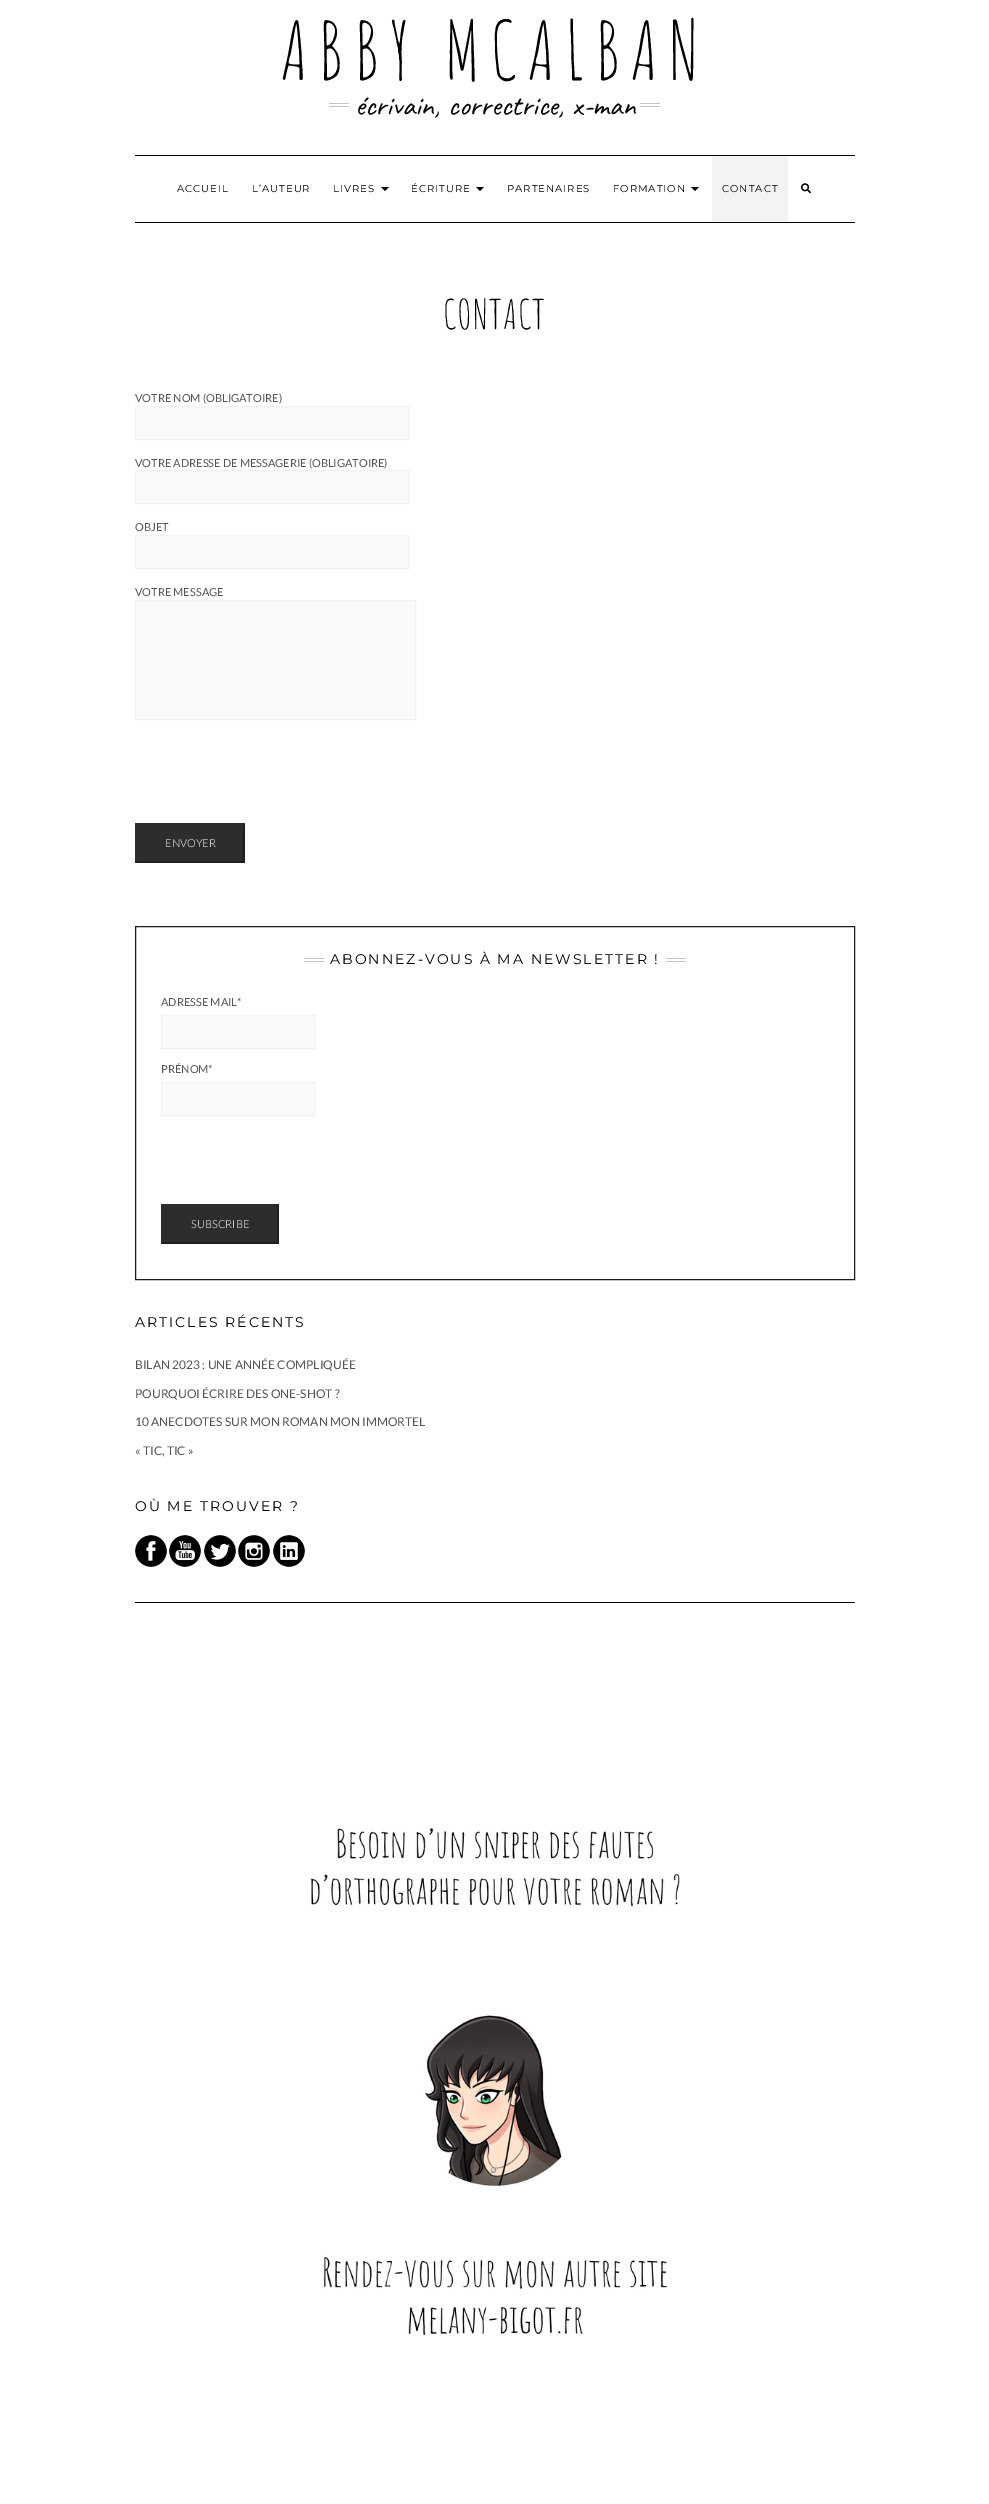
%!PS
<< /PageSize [989 2504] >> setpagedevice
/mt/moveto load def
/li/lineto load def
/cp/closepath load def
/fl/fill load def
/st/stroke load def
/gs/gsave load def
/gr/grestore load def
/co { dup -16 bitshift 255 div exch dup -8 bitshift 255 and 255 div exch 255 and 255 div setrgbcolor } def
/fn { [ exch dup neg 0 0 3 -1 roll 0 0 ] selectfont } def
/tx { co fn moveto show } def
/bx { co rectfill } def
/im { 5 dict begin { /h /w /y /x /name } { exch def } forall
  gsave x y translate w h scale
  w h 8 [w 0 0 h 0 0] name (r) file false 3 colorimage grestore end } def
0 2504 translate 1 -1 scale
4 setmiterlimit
0 0 989 2504 16#FFFFFF bx
329 103 20 1 16#C4C4C4 bx
329 106 20 1 16#C4C4C4 bx
640 103 20 1 16#C4C4C4 bx
640 106 20 1 16#C4C4C4 bx
135 155 720 1 16#000000 bx
135 222 720 1 16#000000 bx
381 187 mt 389 187 li 385 191 li cp fl
476 187 mt 484 187 li 480 191 li cp fl
691 187 mt 699 187 li 695 191 li cp fl
712 156 76 66 16#F3F3F3 bx
(media/1.raw) 801 183 10 11 im
16#FAFAFA co
135.5 406.5 mt 408.5 406.5 li 408.5 439.5 li 135.5 439.5 li cp gs fl gr
16#F1F1F1 co
st
16#FAFAFA co
135.5 470.5 mt 408.5 470.5 li 408.5 503.5 li 135.5 503.5 li cp gs fl gr
16#F1F1F1 co
st
16#FAFAFA co
135.5 535.5 mt 408.5 535.5 li 408.5 568.5 li 135.5 568.5 li cp gs fl gr
16#F1F1F1 co
st
16#FAFAFA co
135.5 600.5 mt 415.5 600.5 li 415.5 719.5 li 135.5 719.5 li cp gs fl gr
16#F1F1F1 co
st
135 823 110 40 16#2D2D2D bx
16#1E1E1E co
245 823 mt 245 863 li 243 861 li 243 825 li cp fl
245 863 mt 135 863 li 137 861 li 243 861 li cp fl
16#2D2D2D co
135 863 mt 135 823 li 137 825 li 137 861 li cp fl
16#1A1A1A co
135.5 926.5 719 353 rectstroke
304 958 20 1 16#C4C4C4 bx
304 961 20 1 16#C4C4C4 bx
666 958 20 1 16#C4C4C4 bx
666 961 20 1 16#C4C4C4 bx
16#FAFAFA co
161.5 1015.5 mt 314.5 1015.5 li 314.5 1048.5 li 161.5 1048.5 li cp gs fl gr
16#F1F1F1 co
st
16#FAFAFA co
161.5 1082.5 mt 314.5 1082.5 li 314.5 1115.5 li 161.5 1115.5 li cp gs fl gr
16#F1F1F1 co
st
161 1204 118 40 16#2D2D2D bx
16#1E1E1E co
279 1204 mt 279 1244 li 277 1242 li 277 1206 li cp fl
279 1244 mt 161 1244 li 163 1242 li 277 1242 li cp fl
16#2D2D2D co
161 1244 mt 161 1204 li 163 1206 li 163 1242 li cp fl
(media/2.raw) 135 1535 32 32 im
(media/3.raw) 169 1535 32 32 im
(media/4.raw) 204 1535 32 32 im
(media/5.raw) 238 1535 32 32 im
(media/6.raw) 273 1535 32 32 im
135 1602 720 1 16#000000 bx
(media/7.raw) 310 1828 370 507 im
/AmaticSC-Regular 80 fn
280 80 mt 10 0 (ABBY MCALBAN) ashow
/Caveat-Regular 30 fn
355 115 mt 1 0 32 (écrivain, correctrice, x-man) widthshow
/Montserrat-Regular 10 fn
177 192 mt 1 0 (ACCUEIL) ashow
252 192 mt 1 0 (L’AUTEUR) ashow
333 192 mt 1 0 (LIVRES) ashow
411 192 mt 1 0 (ÉCRITURE) ashow
507 192 mt 1 0 (PARTENAIRES) ashow
613 192 mt 1 0 (FORMATION) ashow
722 192 mt 1 0 (CONTACT) ashow
/AmaticSC-Regular 40 fn
443 329 mt 1 0 (CONTACT) ashow
(VOTRE NOM \(OBLIGATOIRE\)) 135 402 /Lato-Regular 11 16#545454 tx
(VOTRE ADRESSE DE MESSAGERIE \(OBLIGATOIRE\)) 135 467 /Lato-Regular 11 16#545454 tx
(OBJET) 135 531 /Lato-Regular 11 16#545454 tx
(VOTRE MESSAGE) 135 596 /Lato-Regular 11 16#545454 tx
(ENVOYER) 165 847 /Lato-Light 11 16#FFFFFF tx
/Montserrat-Regular 14 fn
16#000000 co
330 964 mt 2 0 (ABONNEZ-VOUS À MA NEWSLETTER !) ashow
(ADRESSE MAIL*) 161 1006 /Lato-Regular 11 16#545454 tx
(PRÉNOM*) 161 1073 /Lato-Regular 11 16#545454 tx
(SUBSCRIBE) 191 1228 /Lato-Light 11 16#FFFFFF tx
/Montserrat-Regular 14 fn
16#000000 co
135 1327 mt 2 0 (ARTICLES RÉCENTS) ashow
(BILAN 2023 : UNE ANNÉE COMPLIQUÉE) 135 1369 /Lato-Regular 12 16#545454 tx
(POURQUOI ÉCRIRE DES ONE-SHOT ?) 135 1398 /Lato-Regular 12 16#545454 tx
(10 ANECDOTES SUR MON ROMAN MON IMMORTEL) 135 1426 /Lato-Regular 12 16#545454 tx
(« TIC, TIC ») 135 1455 /Lato-Regular 12 16#545454 tx
/Montserrat-Regular 14 fn
16#000000 co
135 1511 mt 2 0 (OÙ ME TROUVER ?) ashow
showpage
